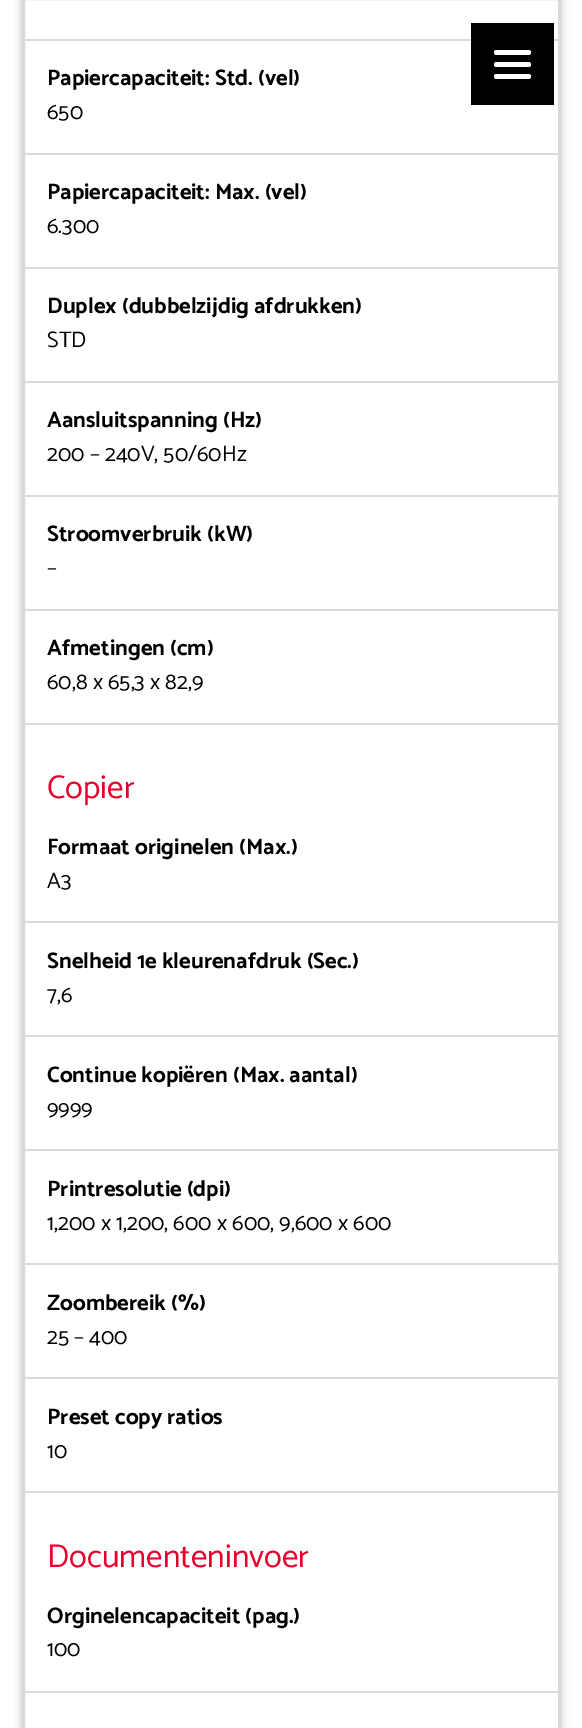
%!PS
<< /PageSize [582 1728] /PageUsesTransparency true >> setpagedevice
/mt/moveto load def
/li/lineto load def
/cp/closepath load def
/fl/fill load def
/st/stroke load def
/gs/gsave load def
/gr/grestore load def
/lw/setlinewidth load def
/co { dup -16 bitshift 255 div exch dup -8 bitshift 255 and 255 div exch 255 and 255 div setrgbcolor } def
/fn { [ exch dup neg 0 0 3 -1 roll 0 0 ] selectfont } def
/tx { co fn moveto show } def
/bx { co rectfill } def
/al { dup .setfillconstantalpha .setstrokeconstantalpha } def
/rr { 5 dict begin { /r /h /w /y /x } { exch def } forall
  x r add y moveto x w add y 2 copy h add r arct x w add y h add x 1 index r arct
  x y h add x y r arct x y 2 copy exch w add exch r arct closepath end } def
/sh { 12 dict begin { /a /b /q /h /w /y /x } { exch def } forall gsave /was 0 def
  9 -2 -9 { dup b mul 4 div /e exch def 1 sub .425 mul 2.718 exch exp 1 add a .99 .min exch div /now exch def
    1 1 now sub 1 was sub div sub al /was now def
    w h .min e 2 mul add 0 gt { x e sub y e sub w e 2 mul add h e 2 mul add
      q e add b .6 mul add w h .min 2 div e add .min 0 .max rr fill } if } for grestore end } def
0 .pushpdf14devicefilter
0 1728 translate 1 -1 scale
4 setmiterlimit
0 0 582 1728 16#FFFFFF bx
16#AAAAAA co
23 -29 537 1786 15 4.5 1 sh
16#FFFFFF co
24 -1 mt 559 -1 li 559 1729 li 24 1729 li cp gs fl gr
16#DADADA co
2 lw
st
24 39 534 2 16#DADADA bx
24 153 534 2 16#DADADA bx
24 267 534 2 16#DADADA bx
24 381 534 2 16#DADADA bx
24 495 534 2 16#DADADA bx
24 609 534 2 16#DADADA bx
24 723 534 2 16#DADADA bx
24 921 534 2 16#DADADA bx
24 1035 534 2 16#DADADA bx
24 1149 534 2 16#DADADA bx
24 1263 534 2 16#DADADA bx
24 1377 534 2 16#DADADA bx
24 1491 534 2 16#DADADA bx
24 1691 534 2 16#DADADA bx
471 23 83 82 16#000000 bx
16#FFFFFF co
494 62 37 5 2.5 rr fl
494 50 37 5 2.5 rr fl
494 74 37 5 2.5 rr fl
(Papiercapaciteit: Std. \(vel\)) 47 85 /Catamaran-Bold 22.5 16#000000 tx
(650) 47 119 /Catamaran-Regular 22.5 16#000000 tx
(Papiercapaciteit: Max. \(vel\)) 47 199 /Catamaran-Bold 22.5 16#000000 tx
(6.300) 47 233 /Catamaran-Regular 22.5 16#000000 tx
(Duplex \(dubbelzijdig afdrukken\)) 47 313 /Catamaran-Bold 22.5 16#000000 tx
(STD) 47 347 /Catamaran-Regular 22.5 16#000000 tx
(Aansluitspanning \(Hz\)) 47 427 /Catamaran-Bold 22.5 16#000000 tx
(200 – 240V, 50/60Hz) 47 461 /Catamaran-Regular 22.5 16#000000 tx
(Stroomverbruik \(kW\)) 47 541 /Catamaran-Bold 22.5 16#000000 tx
(–) 47 575 /Catamaran-Regular 22.5 16#000000 tx
(Afmetingen \(cm\)) 47 655 /Catamaran-Bold 22.5 16#000000 tx
(60,8 x 65,3 x 82,9) 47 689 /Catamaran-Regular 22.5 16#000000 tx
(Copier) 47 798 /Catamaran-Regular 33 16#E4032D tx
(Formaat originelen \(Max.\)) 47 854 /Catamaran-Bold 22.5 16#000000 tx
(A3) 47 888 /Catamaran-Regular 22.5 16#000000 tx
(Snelheid 1e kleurenafdruk \(Sec.\)) 47 968 /Catamaran-Bold 22.5 16#000000 tx
(7,6) 47 1002 /Catamaran-Regular 22.5 16#000000 tx
(Continue kopiëren \(Max. aantal\)) 47 1082 /Catamaran-Bold 22.5 16#000000 tx
(9999) 47 1116 /Catamaran-Regular 22.5 16#000000 tx
(Printresolutie \(dpi\)) 47 1196 /Catamaran-Bold 22.5 16#000000 tx
(1,200 x 1,200, 600 x 600, 9,600 x 600) 47 1230 /Catamaran-Regular 22.5 16#000000 tx
(Zoombereik \(%\)) 47 1310 /Catamaran-Bold 22.5 16#000000 tx
(25 – 400) 47 1344 /Catamaran-Regular 22.5 16#000000 tx
(Preset copy ratios) 47 1424 /Catamaran-Bold 22.5 16#000000 tx
(10) 47 1458 /Catamaran-Regular 22.5 16#000000 tx
(Documenteninvoer) 47 1567 /Catamaran-Regular 33 16#E4032D tx
(Orginelencapaciteit \(pag.\)) 47 1623 /Catamaran-Bold 22.5 16#000000 tx
(100) 47 1656 /Catamaran-Regular 22.5 16#000000 tx
.poppdf14devicefilter showpage
